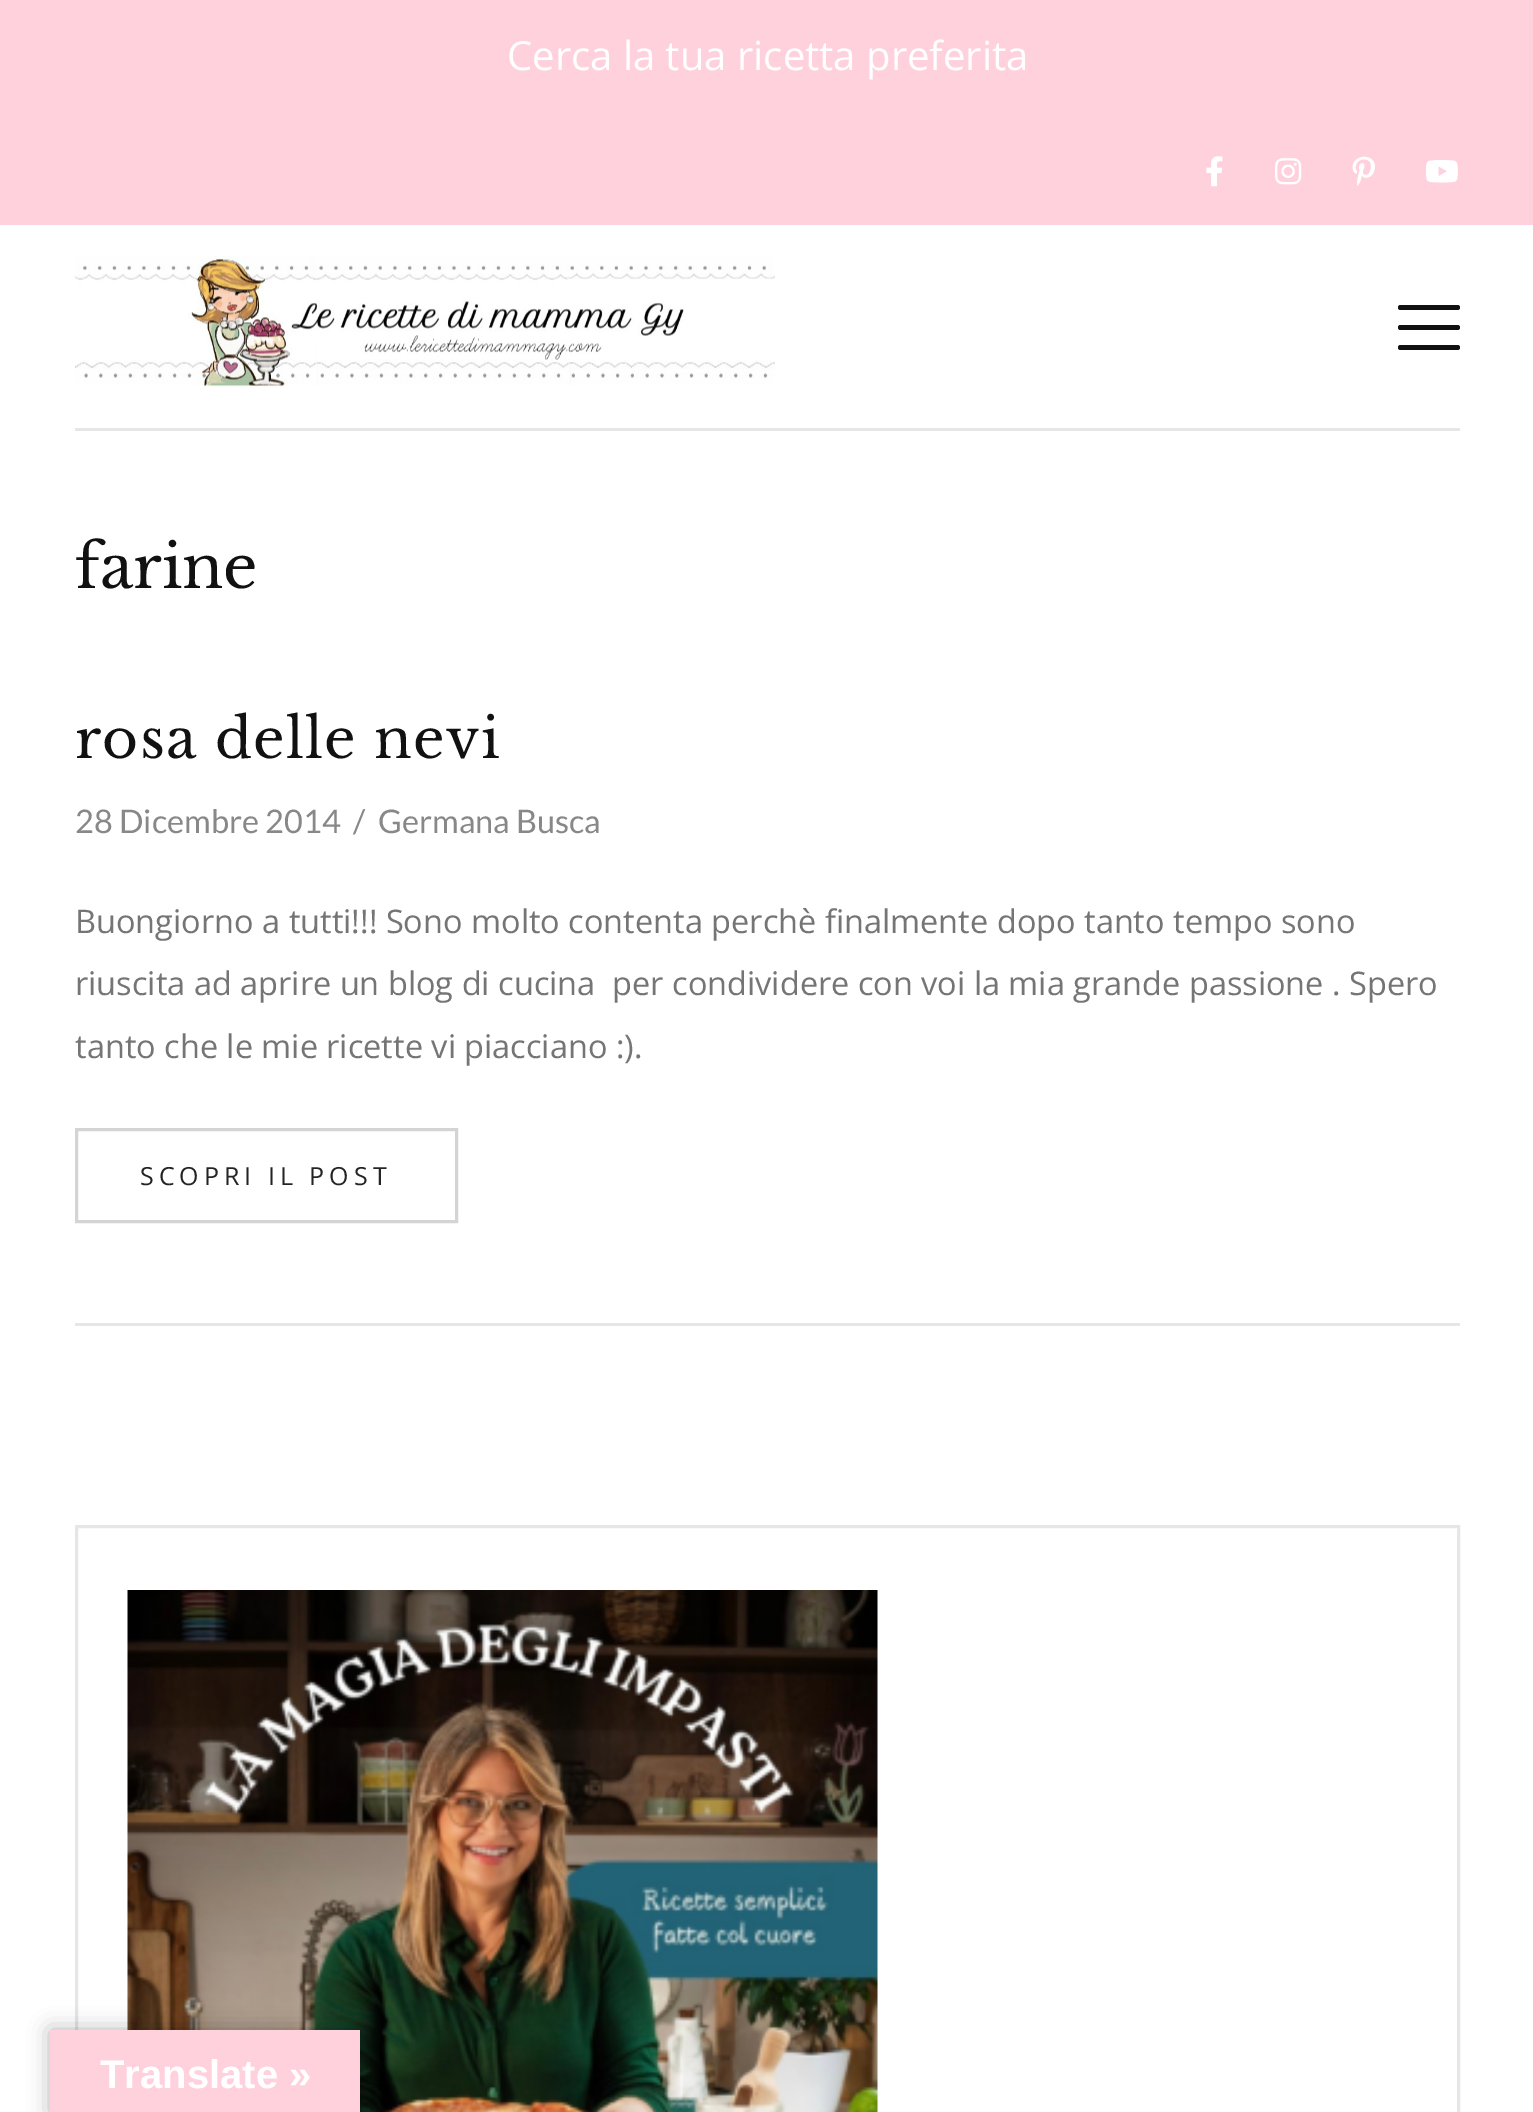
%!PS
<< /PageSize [1533 2112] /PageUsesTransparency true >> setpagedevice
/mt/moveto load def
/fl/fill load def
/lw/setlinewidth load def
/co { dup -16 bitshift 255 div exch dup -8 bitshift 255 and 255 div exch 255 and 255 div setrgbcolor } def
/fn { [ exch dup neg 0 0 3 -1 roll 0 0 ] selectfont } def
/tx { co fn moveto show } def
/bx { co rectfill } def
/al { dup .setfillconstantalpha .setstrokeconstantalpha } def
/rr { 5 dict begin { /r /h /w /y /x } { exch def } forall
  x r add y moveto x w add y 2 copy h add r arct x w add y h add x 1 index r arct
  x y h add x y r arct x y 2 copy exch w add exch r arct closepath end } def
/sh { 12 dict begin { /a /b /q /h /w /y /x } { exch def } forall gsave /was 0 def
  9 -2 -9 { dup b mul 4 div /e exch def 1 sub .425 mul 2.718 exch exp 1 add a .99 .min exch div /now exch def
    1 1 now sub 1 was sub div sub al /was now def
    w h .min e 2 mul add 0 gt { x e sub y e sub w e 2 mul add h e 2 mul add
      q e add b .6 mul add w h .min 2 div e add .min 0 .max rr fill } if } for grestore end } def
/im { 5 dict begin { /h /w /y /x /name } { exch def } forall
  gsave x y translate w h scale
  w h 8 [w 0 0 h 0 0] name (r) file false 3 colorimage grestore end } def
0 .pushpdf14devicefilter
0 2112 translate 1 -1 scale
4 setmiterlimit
0 0 1533 2112 16#FFFFFF bx
0 0 1533 225 16#FFD1DD bx
(media/1.raw) 1206 156 17 31 im
(media/2.raw) 1275 158 27 27 im
(media/3.raw) 1352 156 23 30 im
(media/4.raw) 1425 160 33 23 im
75 428 1385 3 16#E6E6E6 bx
(media/5.raw) 75 256 700 131 im
16#111111 co
1398 305 62 5 2.5 rr fl
1398 325 62 5 2.5 rr fl
1398 345 62 5 2.5 rr fl
75 1323 1385 3 16#E6E6E6 bx
16#D4D4D4 co
3 lw
76.5 1129.5 380 92 rectstroke
16#E6E6E6 co
76.5 1526.5 1382 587 rectstroke
(media/6.raw) 127 1590 751 522 im
16#000000 co
50 2030 310 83 0 11 .3 sh
50 2030 310 82 16#FFD1DD bx
(Cerca la tua ricetta preferita) 507 70 /OpenSans-Regular 40 16#FFFFFF tx
(farine) 75 588 /LibreBaskerville-Regular 60 16#111111 tx
/LibreBaskerville-Regular 55 fn
75 758 mt 1.25 0 (rosa delle nevi) ashow
(28 Dicembre 2014) 75 833 /Lato-Regular 32.5 16#888888 tx
(/) 353 833 /Lato-Regular 32.5 16#888888 tx
(Germana Busca) 378 833 /Lato-Regular 32.5 16#888888 tx
(Buongiorno a tutti!!! Sono molto contenta perchè finalmente dopo tanto tempo sono) 75 933 /OpenSans-Regular 32.5 16#757575 tx
(riuscita ad aprire un blog di cucina  per condividere con voi la mia grande passione . Spero) 75 995 /OpenSans-Regular 32.5 16#757575 tx
(tanto che le mie ricette vi piacciano :\).) 75 1058 /OpenSans-Regular 32.5 16#757575 tx
/OpenSans-Regular 25 fn
16#242424 co
140 1185 mt 5 0 (SCOPRI IL POST) ashow
(Translate ») 100 2088 /LiberationSans-Bold 40 16#FFFFFF tx
.poppdf14devicefilter showpage
